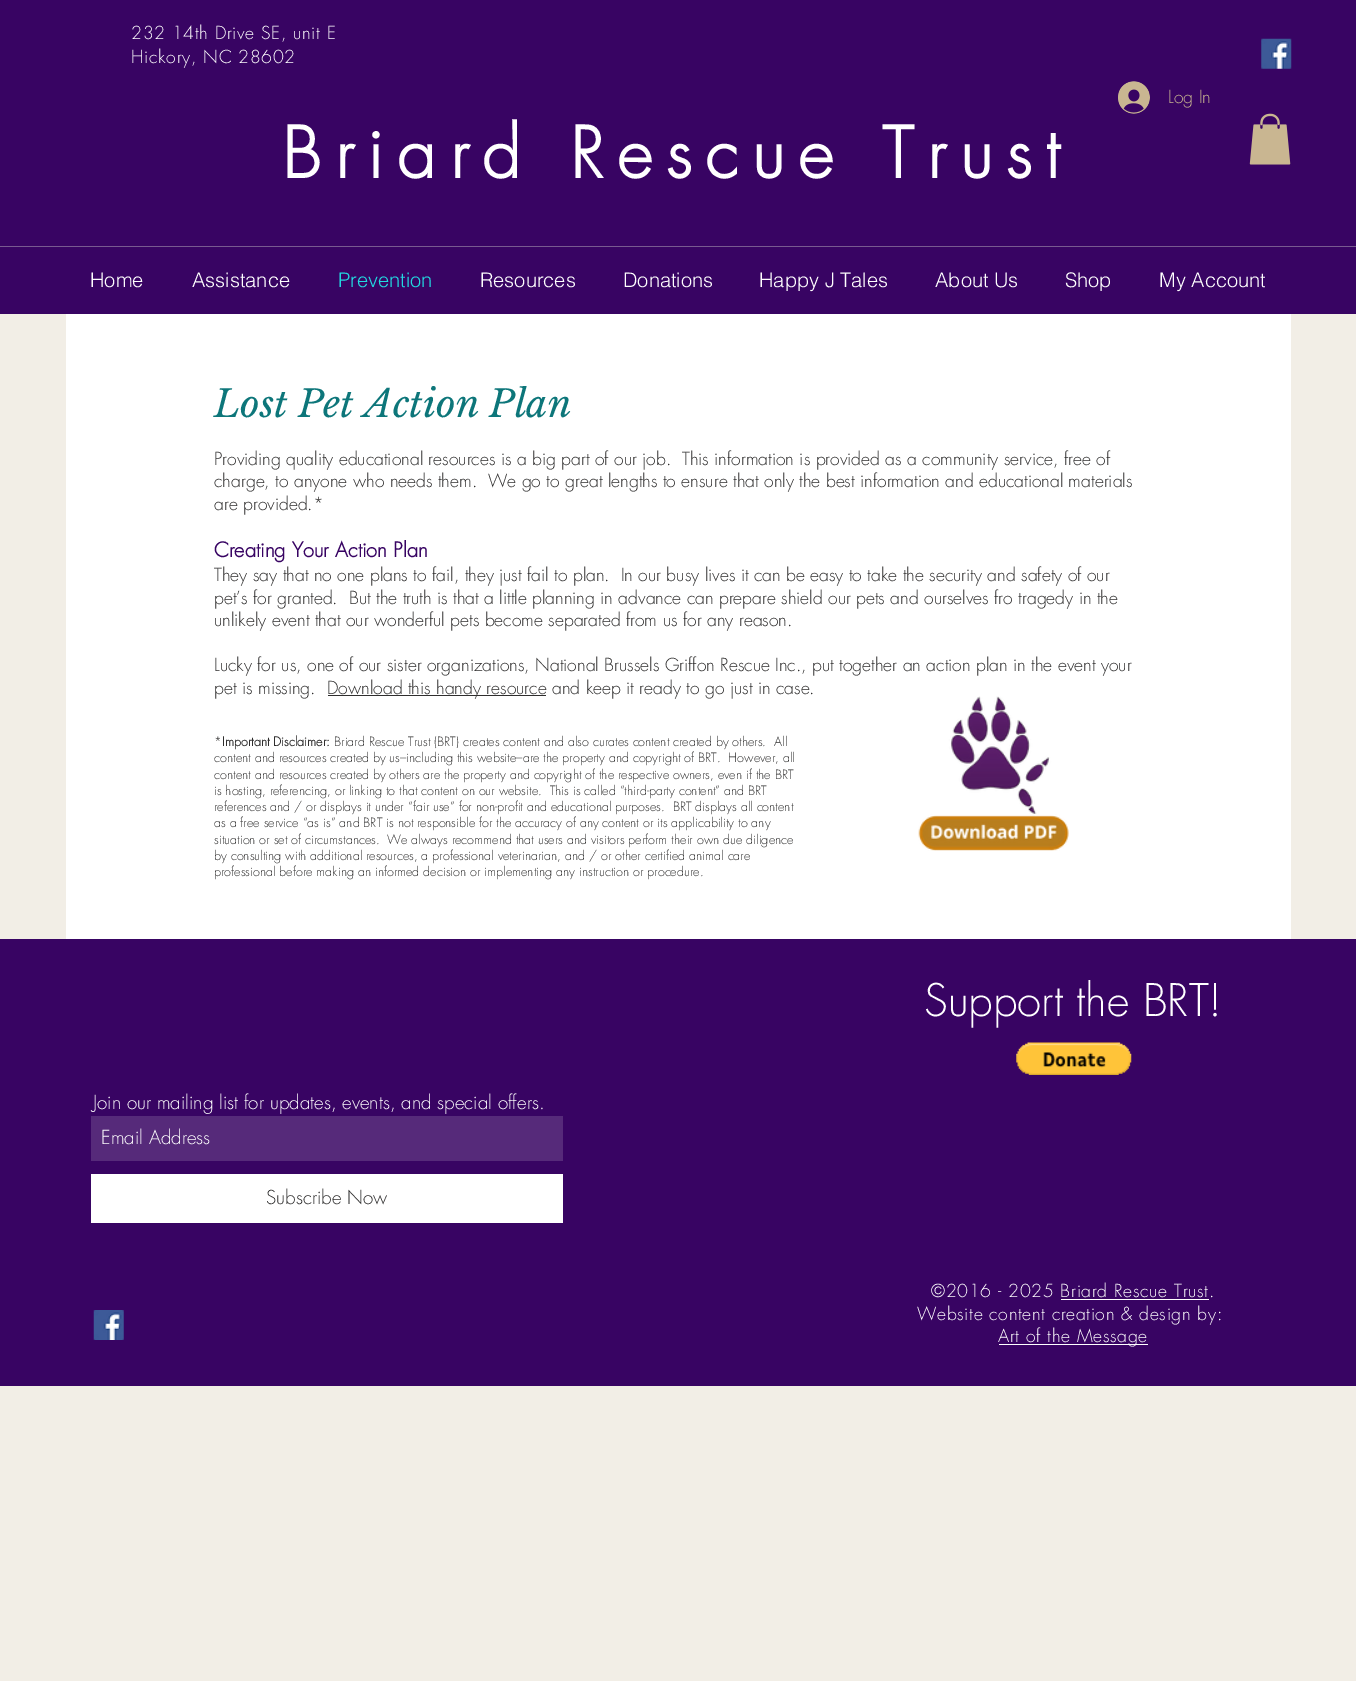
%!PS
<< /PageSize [1356 1681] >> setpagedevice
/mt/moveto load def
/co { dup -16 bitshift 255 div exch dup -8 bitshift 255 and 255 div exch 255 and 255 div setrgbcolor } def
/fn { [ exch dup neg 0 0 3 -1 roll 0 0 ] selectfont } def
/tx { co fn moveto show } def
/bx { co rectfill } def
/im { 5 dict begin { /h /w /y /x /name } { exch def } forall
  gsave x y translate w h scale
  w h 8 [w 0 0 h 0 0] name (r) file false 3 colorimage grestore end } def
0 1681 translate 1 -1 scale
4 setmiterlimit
0 0 1356 1681 16#F2EEE6 bx
0 0 1356 314 16#380463 bx
(media/1.raw) 1261 38 31 31 im
(media/2.raw) 1118 81 32 33 im
(media/3.raw) 1249 113 42 52 im
0 246 1356 1 16#785A90 bx
66 314 1225 625 16#FFFFFF bx
328 695 218 1 16#2F2E2E bx
(media/4.raw) 918 696 151 155 im
0 939 1356 447 16#380463 bx
(media/5.raw) 1016 1042 116 33 im
91 1116 472 45 16#562A7A bx
91 1174 472 49 16#FFFFFF bx
(media/6.raw) 93 1310 31 30 im
1061 1299 148 1 16#FFFFFF bx
999 1344 149 1 16#FFFFFF bx
/futura-Light 17.5 fn
131 39 mt .7 0 (232 14th Drive SE, unit E) ashow
131 63 mt .7 0 (Hickory, NC 28602) ashow
(Log In) 1168 103 /futura-Light 17.5 16#C9B691 tx
/futura-Bold 68.75 fn
16#FFFFFF co
282 178 mt 13.75 0 (Briard Rescue Trust) ashow
(Home) 90 287 /helvetica-Light 20 16#FFFFFF tx
(Assistance) 192 287 /helvetica-Light 20 16#FFFFFF tx
(Prevention) 338 287 /helvetica-Light 20 16#22D9E0 tx
(Resources) 480 287 /helvetica-Light 20 16#FFFFFF tx
(Donations) 623 287 /helvetica-Light 20 16#FFFFFF tx
(Happy J Tales) 759 287 /helvetica-Light 20 16#FFFFFF tx
(About Us) 935 287 /helvetica-Light 20 16#FFFFFF tx
(Shop) 1065 287 /helvetica-Light 20 16#FFFFFF tx
(My Account) 1159 287 /helvetica-Light 20 16#FFFFFF tx
(Lost Pet Action Plan) 214 417 /LibreBaskerville-Italic 37.5 16#0D767A tx
(Providing quality educational resources is a big part of our job.  This information is provided as a community service, free of) 214 465 /futura-Light 17.5 16#2F2E2E tx
(charge, to anyone who needs them.  We go to great lengths to ensure that only the best information and educational materials) 214 487 /futura-Light 17.5 16#2F2E2E tx
(are provided.*) 214 510 /futura-Light 17.5 16#2F2E2E tx
(Creating Your Action Plan) 214 557 /futura-Bold 20 16#380463 tx
(They say that no one plans to fail, they just fail to plan.  In our busy lives it can be easy to take the security and safety of our) 214 581 /futura-Light 17.5 16#2F2E2E tx
(pet’s for granted.  But the truth is that a little planning in advance can prepare shield our pets and ourselves fro tragedy in the) 214 604 /futura-Light 17.5 16#2F2E2E tx
(unlikely event that our wonderful pets become separated from us for any reason.) 214 626 /futura-Light 17.5 16#2F2E2E tx
(Lucky for us, one of our sister organizations, National Brussels Griffon Rescue Inc., put together an action plan in the event your) 214 671 /futura-Light 17.5 16#2F2E2E tx
(pet is missing.) 214 694 /futura-Light 17.5 16#2F2E2E tx
(Download this handy resource and keep it ready to go just in case.) 327 694 /futura-Light 17.5 16#2F2E2E tx
(*) 214 746 /futura-Light 12.5 16#2F2E2E tx
(Important Disclaimer:) 222 746 /futura-Bold 12.5 16#2F2E2E tx
(Briard Rescue Trust \(BRT\) creates content and also curates content created by others.  All) 334 746 /futura-Light 12.5 16#2F2E2E tx
(content and resources created by us–including this website–are the property and copyright of BRT.  However, all) 214 762 /futura-Light 12.5 16#2F2E2E tx
(content and resources created by others are the property and copyright of the respective owners, even if the BRT) 214 779 /futura-Light 12.5 16#2F2E2E tx
(is hosting, referencing, or linking to that content on our website.  This is called “third-party content” and BRT) 214 795 /futura-Light 12.5 16#2F2E2E tx
(references and / or displays it under “fair use” for non-profit and educational purposes.  BRT displays all content) 214 811 /futura-Light 12.5 16#2F2E2E tx
(as a free service “as is” and BRT is not responsible for the accuracy of any content or its applicability to any) 214 827 /futura-Light 12.5 16#2F2E2E tx
(situation or set of circumstances.  We always recommend that users and visitors perform their own due diligence) 214 844 /futura-Light 12.5 16#2F2E2E tx
(by consulting with additional resources, a professional veterinarian, and / or other certified animal care) 214 860 /futura-Light 12.5 16#2F2E2E tx
(professional before making an informed decision or implementing any instruction or procedure.) 214 876 /futura-Light 12.5 16#2F2E2E tx
(Support the BRT!) 924 1016 /futura-Light 43.75 16#FFFFFF tx
(Join our mailing list for updates, events, and special offers.) 93 1109 /futura-Light 18.75 16#FFFFFF tx
(Email Address) 101 1144 /futura-Light 18.75 16#FFFFFF tx
(Subscribe Now) 266 1204 /futura-Light 18.75 16#2F2E2E tx
/futura-Light 17.5 fn
16#FFFFFF co
931 1297 mt .7 0 (©2016 - 2025 Briard Rescue Trust.) ashow
917 1320 mt .7 0 (Website content creation & design by:) ashow
998 1342 mt .7 0 (Art of the Message) ashow
showpage
